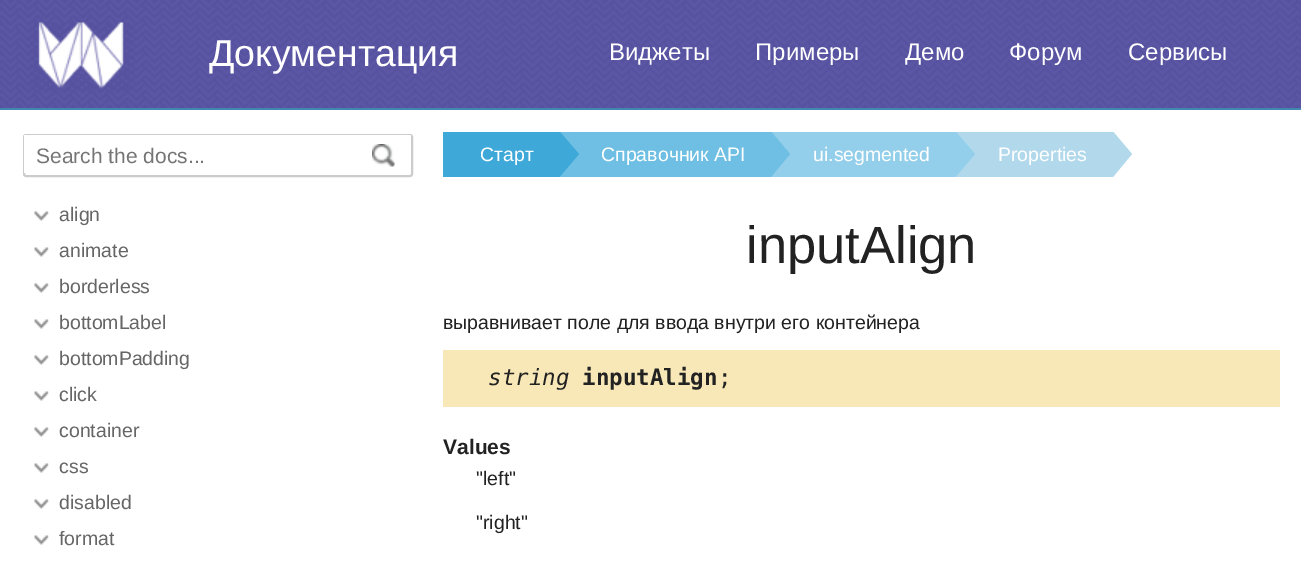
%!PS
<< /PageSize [1301 571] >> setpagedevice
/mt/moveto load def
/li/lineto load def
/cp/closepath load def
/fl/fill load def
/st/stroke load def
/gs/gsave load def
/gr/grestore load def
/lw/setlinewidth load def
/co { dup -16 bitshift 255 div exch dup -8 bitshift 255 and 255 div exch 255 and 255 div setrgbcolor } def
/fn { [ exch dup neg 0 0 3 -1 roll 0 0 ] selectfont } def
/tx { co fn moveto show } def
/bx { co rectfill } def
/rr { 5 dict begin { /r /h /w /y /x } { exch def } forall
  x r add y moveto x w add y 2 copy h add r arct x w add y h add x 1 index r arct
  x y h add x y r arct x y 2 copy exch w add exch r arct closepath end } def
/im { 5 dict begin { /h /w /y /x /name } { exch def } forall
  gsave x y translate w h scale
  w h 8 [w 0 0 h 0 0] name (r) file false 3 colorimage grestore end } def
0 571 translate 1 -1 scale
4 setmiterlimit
0 0 1301 571 16#4287B0 bx
(media/1.raw) 0 0 1301 108 im
(media/2.raw) 30 22 105 69 im
0 110 1301 461 16#FFFFFF bx
16#CCCCCC co
2 lw
24 135 388 41 2 rr st
24 135 387 38 16#FFFFFF bx
(media/3.raw) 372 144 23 23 im
(media/4.raw) 34 211 15 10 im
(media/4.raw) 34 247 15 10 im
(media/4.raw) 34 283 15 10 im
(media/4.raw) 34 319 15 10 im
(media/4.raw) 34 355 15 10 im
(media/4.raw) 34 391 15 10 im
(media/4.raw) 34 427 15 10 im
(media/4.raw) 34 463 15 10 im
(media/4.raw) 34 499 15 10 im
(media/4.raw) 34 535 15 10 im
443 132 91 45 16#3EA9D9 bx
559 132 187 45 16#6EBFE3 bx
gs
443 132 837 45 rectclip
16#3EA9D9 co
534 207 mt 534 102 li 579 154 li cp fl
gr
771 132 159 45 16#93CFEA bx
gs
443 132 837 45 rectclip
16#6EBFE3 co
746 207 mt 746 102 li 790 154 li cp fl
gr
955 132 133 45 16#B1D9EB bx
gs
443 132 837 45 rectclip
16#93CFEA co
930 207 mt 930 102 li 975 154 li cp fl
16#B1D9EB co
1088 207 mt 1088 102 li 1132 154 li cp fl
gr
443 350 837 57 16#F8E8B8 bx
(Документация) 209 66 /LiberationSans-Regular 37.5 16#FFFFFF tx
(Виджеты) 609 60 /LiberationSans-Regular 24 16#FFFFFF tx
(Примеры) 755 60 /LiberationSans-Regular 24 16#FFFFFF tx
(Демо) 905 60 /LiberationSans-Regular 24 16#FFFFFF tx
(Форум) 1009 60 /LiberationSans-Regular 24 16#FFFFFF tx
(Сервисы) 1128 60 /LiberationSans-Regular 24 16#FFFFFF tx
(Search the docs...) 36 163 /LiberationSans-Regular 21 16#757575 tx
(align) 59 221 /LiberationSans-Regular 19.5 16#666666 tx
(animate) 59 257 /LiberationSans-Regular 19.5 16#666666 tx
(borderless) 59 293 /LiberationSans-Regular 19.5 16#666666 tx
(bottomLabel) 59 329 /LiberationSans-Regular 19.5 16#666666 tx
(bottomPadding) 59 365 /LiberationSans-Regular 19.5 16#666666 tx
(click) 59 401 /LiberationSans-Regular 19.5 16#666666 tx
(container) 59 437 /LiberationSans-Regular 19.5 16#666666 tx
(css) 59 473 /LiberationSans-Regular 19.5 16#666666 tx
(disabled) 59 509 /LiberationSans-Regular 19.5 16#666666 tx
(format) 59 545 /LiberationSans-Regular 19.5 16#666666 tx
(Старт) 480 161 /LiberationSans-Regular 19.5 16#FFFFFF tx
(Справочник API) 601 161 /LiberationSans-Regular 19.5 16#FFFFFF tx
(ui.segmented) 813 161 /LiberationSans-Regular 19.5 16#FFFFFF tx
(Properties) 998 161 /LiberationSans-Regular 19.5 16#FFFFFF tx
(inputAlign) 746 263 /LiberationSans-Regular 52.5 16#222222 tx
(выравнивает поле для ввода внутри его контейнера) 443 329 /LiberationSans-Regular 19.5 16#222222 tx
(string) 488 385 /DejaVuSansMono-Italic 22.5 16#222222 tx
(inputAlign) 582 385 /DejaVuSansMono-Bold 22.5 16#222222 tx
(;) 718 385 /DejaVuSansMono-Regular 22.5 16#222222 tx
(Values) 443 454 /LiberationSans-Bold 21 16#222222 tx
("left") 476 485 /LiberationSans-Regular 19.5 16#222222 tx
("right") 476 529 /LiberationSans-Regular 19.5 16#222222 tx
showpage
